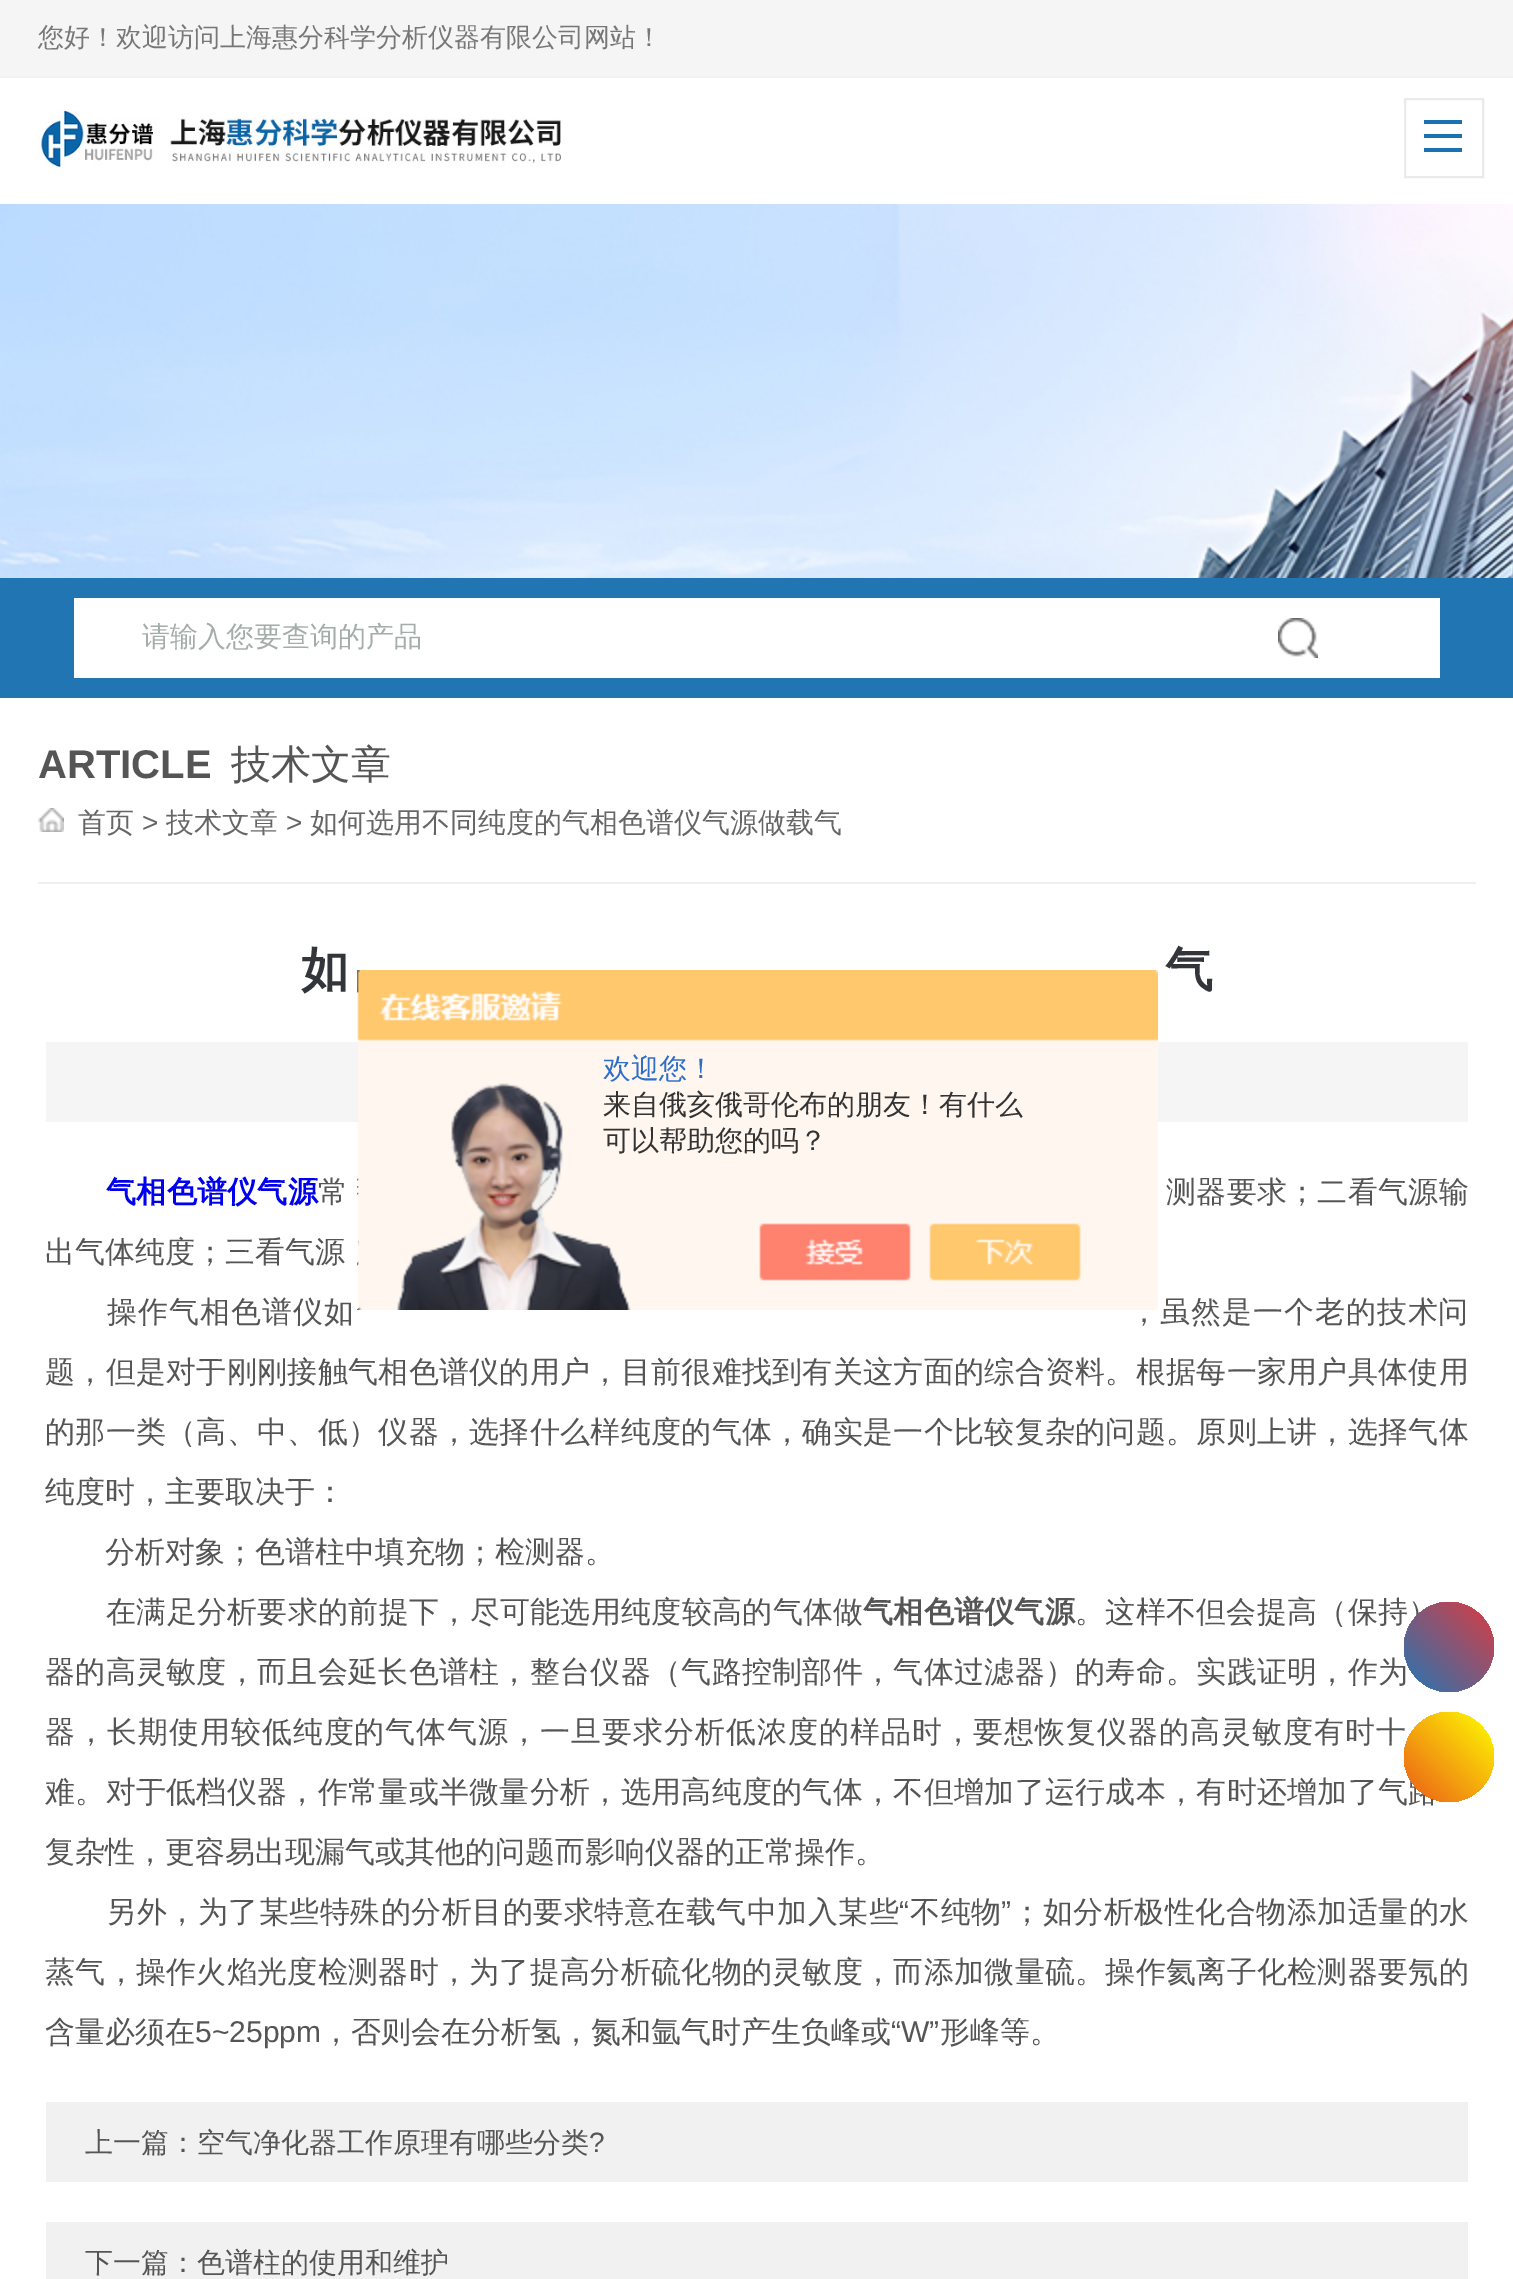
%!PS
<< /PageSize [1513 2279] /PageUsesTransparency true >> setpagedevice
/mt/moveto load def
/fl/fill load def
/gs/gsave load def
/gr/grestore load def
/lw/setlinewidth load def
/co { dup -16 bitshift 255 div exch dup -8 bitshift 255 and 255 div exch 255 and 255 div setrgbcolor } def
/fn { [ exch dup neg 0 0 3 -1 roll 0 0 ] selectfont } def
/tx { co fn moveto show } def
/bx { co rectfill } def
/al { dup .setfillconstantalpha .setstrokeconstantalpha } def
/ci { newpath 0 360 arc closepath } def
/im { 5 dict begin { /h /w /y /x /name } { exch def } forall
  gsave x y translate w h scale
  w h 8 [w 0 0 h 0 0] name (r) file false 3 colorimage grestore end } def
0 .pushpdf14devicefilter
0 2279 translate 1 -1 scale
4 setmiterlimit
0 0 1513 2279 16#FFFFFF bx
0 0 1513 76 16#F5F5F5 bx
0 76 1513 2 16#F1F1F1 bx
(media/1.raw) 38 109 523 58 im
16#EAEAEA co
2 lw
1405 99 78 78 rectstroke
1424 120 38 4 16#1A72B1 bx
1424 134 38 4 16#1A72B1 bx
1424 148 38 4 16#1A72B1 bx
(media/2.raw) 0 204 1513 374 im
0 578 1513 120 16#2175B3 bx
74 598 1366 80 16#FFFFFF bx
(media/3.raw) 1278 618 40 40 im
38 882 1438 2 16#EFEFEF bx
(media/4.raw) 38 808 26 24 im
46 1042 1422 80 16#F5F5F5 bx
46 2102 1422 80 16#F1F1F1 bx
46 2222 1422 57 16#F1F1F1 bx
(您好！欢迎访问上海惠分科学分析仪器有限公司网站！) 38 46 /WenQuanYiZenHei-Medium 26 16#777777 tx
(请输入您要查询的产品) 142 646 /WenQuanYiZenHei-Medium 28 16#A4ADA9 tx
(ARTICLE) 38 778 /LiberationSans-Bold 40 16#555555 tx
(技术文章) 231 778 /WenQuanYiZenHei-Medium 40 16#555555 tx
(首页) 78 832 /WenQuanYiZenHei-Medium 28 16#666666 tx
(>) 142 832 /LiberationSans-Regular 28 16#666666 tx
(技术文章) 166 832 /WenQuanYiZenHei-Medium 28 16#666666 tx
(>) 286 832 /LiberationSans-Regular 28 16#666666 tx
(如何选用不同纯度的气相色谱仪气源做载气) 310 832 /WenQuanYiZenHei-Medium 28 16#666666 tx
(如) 301 986 /WenQuanYiZenHei-Bold 48 16#32353A tx
(气) 1165 986 /WenQuanYiZenHei-Bold 48 16#32353A tx
/WenQuanYiZenHei-Bold 30 fn
16#0000EE co
106 1202 mt .25 0 (气相色谱仪气源) ashow
/WenQuanYiZenHei-Medium 30 fn
16#555555 co
318 1202 mt .3 0 (常) ashow
1166 1202 mt .3 0 (测器要求；二看气源输) ashow
(出气体纯度；三看气源) 45 1262 /WenQuanYiZenHei-Medium 30 16#555555 tx
107 1322 mt .95 0 (操作气相色谱仪如) ashow
1129 1322 mt .95 0 (，虽然是一个老的技术问) ashow
45 1382 mt .3 0 (题，但是对于刚刚接触气相色谱仪的用户，目前很难找到有关这方面的综合资料。根据每一家用户具体使用) ashow
45 1442 mt .3 0 (的那一类（高、中、低）仪器，选择什么样纯度的气体，确实是一个比较复杂的问题。原则上讲，选择气体) ashow
(纯度时，主要取决于：) 45 1502 /WenQuanYiZenHei-Medium 30 16#555555 tx
(分析对象；色谱柱中填充物；检测器。) 105 1562 /WenQuanYiZenHei-Medium 30 16#555555 tx
106 1622 mt .3 0 (在满足分析要求的前提下，尽可能选用纯度较高的气体做) ashow
/WenQuanYiZenHei-Bold 30 fn
863 1622 mt .25 0 (气相色谱仪气源) ashow
/WenQuanYiZenHei-Medium 30 fn
1075 1622 mt .3 0 (。这样不但会提高（保持）) ashow
45 1682 mt .3 0 (器的高灵敏度，而且会延长色谱柱，整台仪器（气路控制部件，气体过滤器）的寿命。实践证明，作为) ashow
45 1742 mt .95 0 (器，长期使用较低纯度的气体气源，一旦要求分析低浓度的样品时，要想恢复仪器的高灵敏度有时十) ashow
45 1802 mt .3 0 (难。对于低档仪器，作常量或半微量分析，选用高纯度的气体，不但增加了运行成本，有时还增加了气路) ashow
(复杂性，更容易出现漏气或其他的问题而影响仪器的正常操作。) 45 1862 /WenQuanYiZenHei-Medium 30 16#555555 tx
106 1922 mt .5 0 (另外，为了某些特殊的分析目的要求特意在载气中加入某些) ashow
/LiberationSans-Regular 30 fn
899 1922 mt .5 0 (“) ashow
/WenQuanYiZenHei-Medium 30 fn
910 1922 mt .5 0 (不纯物) ashow
/LiberationSans-Regular 30 fn
1001 1922 mt .5 0 (”) ashow
/WenQuanYiZenHei-Medium 30 fn
1012 1922 mt .5 0 (；如分析极性化合物添加适量的水) ashow
45 1982 mt .3 0 (蒸气，操作火焰光度检测器时，为了提高分析硫化物的灵敏度，而添加微量硫。操作氦离子化检测器要氖的) ashow
(含量必须在) 45 2042 /WenQuanYiZenHei-Medium 30 16#555555 tx
(5~25ppm) 195 2042 /LiberationSans-Regular 30 16#555555 tx
(，否则会在分析氢，氮和氩气时产生负峰或) 321 2042 /WenQuanYiZenHei-Medium 30 16#555555 tx
(“W”) 891 2042 /LiberationSans-Regular 30 16#555555 tx
(形峰等。) 940 2042 /WenQuanYiZenHei-Medium 30 16#555555 tx
(上一篇：空气净化器工作原理有哪些分类) 85 2152 /WenQuanYiZenHei-Medium 28 16#555555 tx
(?) 589 2152 /LiberationSans-Regular 28 16#555555 tx
(下一篇：色谱柱的使用和维护) 85 2272 /WenQuanYiZenHei-Medium 28 16#555555 tx
(media/5.raw) 357 970 801 340 im
(欢迎您！) 603 1078 /WenQuanYiZenHei-Medium 28 16#2E6EC6 tx
(来自俄亥俄哥伦布的朋友！有什么) 603 1114 /WenQuanYiZenHei-Medium 28 16#333333 tx
(可以帮助您的吗？) 603 1150 /WenQuanYiZenHei-Medium 28 16#333333 tx
0.9 al
16#1D78BF co
1449 1647 45 ci fl
gs 1449 1647 45 ci clip newpath
<< /ShadingType 2 /ColorSpace /DeviceRGB /Coords [1404 1692 1494 1602] /Extend [true true] /Function << /FunctionType 2 /Domain [0 1] /C0 [.129 .459 .702] /C1 [.937 .196 .196] /N 1 >> >> shfill gr
1 al
gs 1449 1757 45 ci clip newpath
<< /ShadingType 2 /ColorSpace /DeviceRGB /Coords [1404 1802 1494 1712] /Extend [true true] /Function << /FunctionType 2 /Domain [0 1] /C0 [.922 .357 .098] /C1 [1 1 0] /N 1 >> >> shfill gr
.poppdf14devicefilter showpage
